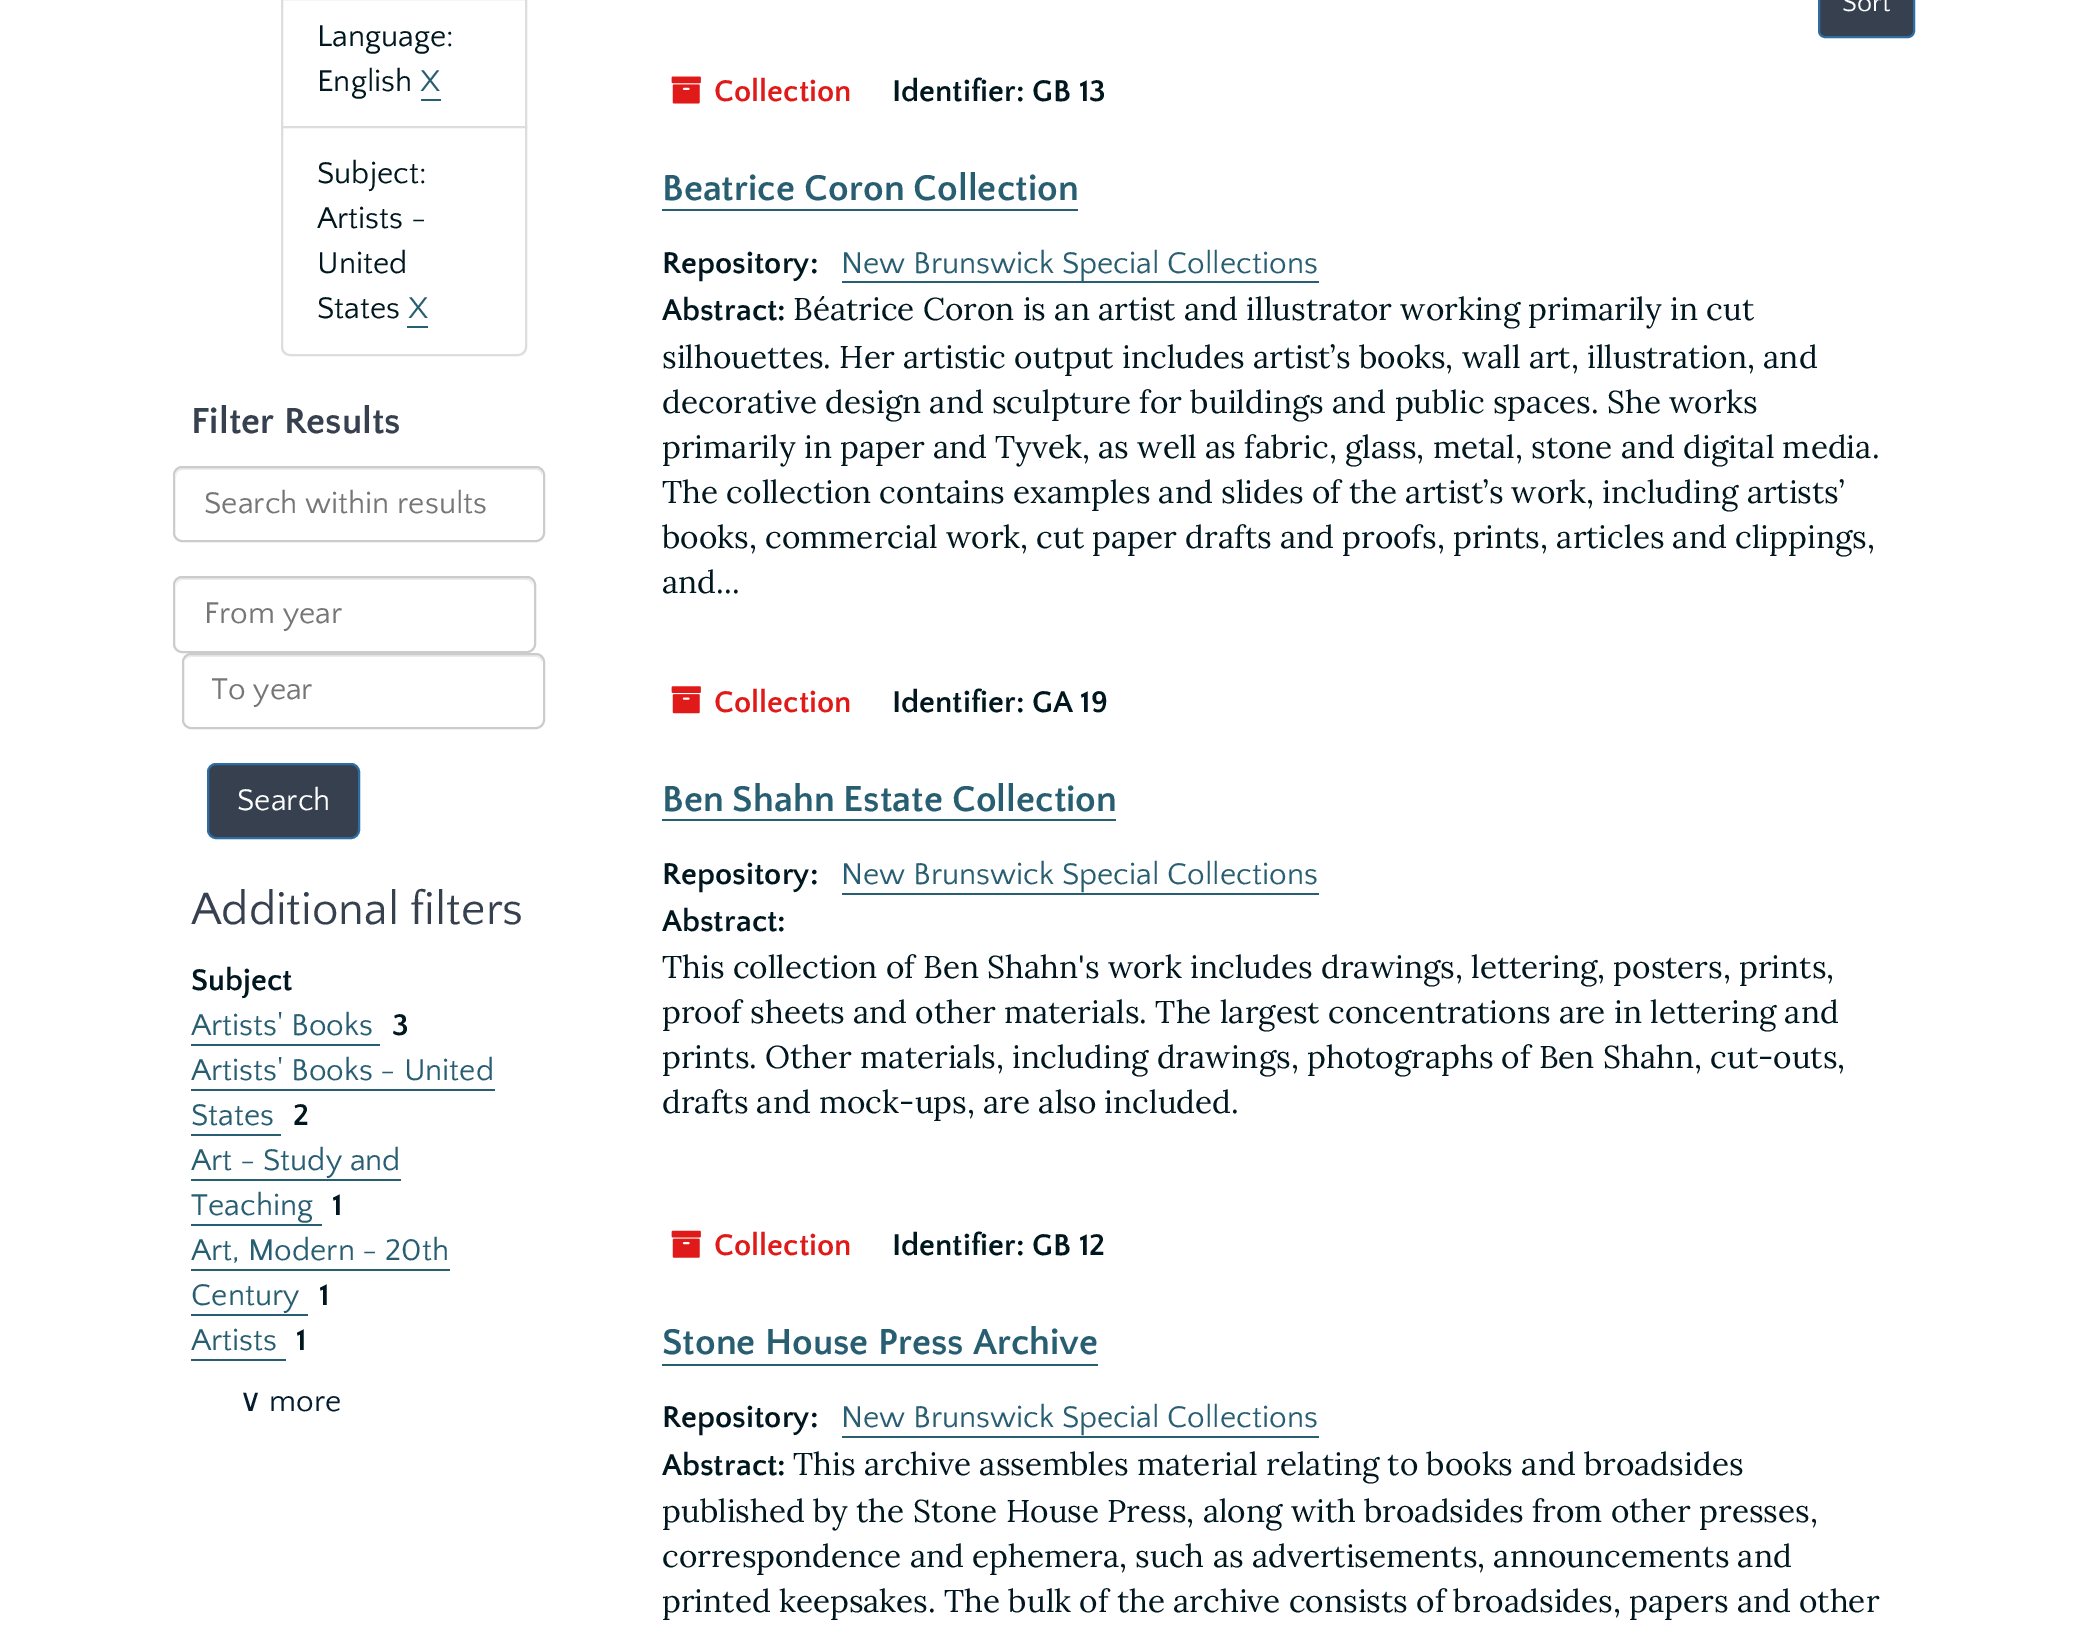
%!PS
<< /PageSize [2083 1630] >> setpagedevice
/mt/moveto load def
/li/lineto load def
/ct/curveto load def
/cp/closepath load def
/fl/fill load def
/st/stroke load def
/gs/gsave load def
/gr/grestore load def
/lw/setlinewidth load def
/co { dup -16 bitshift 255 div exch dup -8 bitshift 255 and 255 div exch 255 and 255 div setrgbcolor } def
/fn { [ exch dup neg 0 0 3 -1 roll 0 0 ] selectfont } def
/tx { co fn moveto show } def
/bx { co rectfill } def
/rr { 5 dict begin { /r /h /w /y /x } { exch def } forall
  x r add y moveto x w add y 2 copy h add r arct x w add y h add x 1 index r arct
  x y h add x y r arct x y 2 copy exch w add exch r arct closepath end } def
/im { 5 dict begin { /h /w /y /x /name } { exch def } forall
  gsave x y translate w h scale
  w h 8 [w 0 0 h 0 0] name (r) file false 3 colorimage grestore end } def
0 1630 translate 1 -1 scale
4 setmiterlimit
0 0 2083 1630 16#FFFFFF bx
16#DDDDDD co
2 lw
282 -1 244 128 rectstroke
421 99 20 2 16#285E71 bx
16#FFFFFF co
282 127 mt 526 127 li 526 347 li 526 351.5 522.5 355 518 355 ct 290 355 li 285.5 355 282 351.5 282 347 ct cp gs fl gr
16#DDDDDD co
st
407 326 21 2 16#285E71 bx
16#ECECEC co
182 470 mt 536 470 li 539 470 542 473 542 477 ct 542 475 li 542 471 539 468 535 468 ct 183 468 li 179 468 176 471 176 475 ct 176 477 li 176 473 179 470 182 470 ct cp fl
16#CCCCCC co
174 467 370 74 8 rr st
16#ECECEC co
182 580 mt 526 580 li 530 580 533 584 533 587 ct 533 583 531 578 526 578 ct 183 578 li 178 578 176 583 176 587 ct 176 584 179 580 182 580 ct cp fl
16#CCCCCC co
174 577 361 75 8 rr st
16#ECECEC co
191 657 mt 536 657 li 539 657 542 660 542 664 ct 542 662 li 542 658 539 655 535 655 ct 192 655 li 189 655 186 657 185 660 ct 187 658 189 657 191 657 ct cp fl
16#CCCCCC co
183 654 361 74 8 rr st
16#36404E co
208 764 151 74 8 rr gs fl gr
16#2E6DA4 co
st
191 1044 189 2 16#285E71 bx
191 1089 304 2 16#285E71 bx
191 1134 90 2 16#285E71 bx
191 1179 210 2 16#285E71 bx
191 1224 131 2 16#285E71 bx
191 1269 259 2 16#285E71 bx
191 1314 117 2 16#285E71 bx
191 1359 95 2 16#285E71 bx
16#36404E co
1819 -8 95 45 6 rr gs fl gr
16#2E6DA4 co
st
(media/1.raw) 671 76 30 28 im
662 209 416 2 16#285E71 bx
842 281 477 2 16#285E71 bx
(media/2.raw) 671 686 30 28 im
662 819 454 2 16#285E71 bx
842 893 477 2 16#285E71 bx
(media/3.raw) 671 1230 30 28 im
662 1364 436 2 16#285E71 bx
842 1436 477 2 16#285E71 bx
(Language:) 317 46 /QuattrocentoSans-Regular 31.5 16#00171F tx
(English) 317 91 /QuattrocentoSans-Regular 31.5 16#00171F tx
(X) 420 91 /QuattrocentoSans-Regular 31.5 16#285E71 tx
(Subject:) 317 183 /QuattrocentoSans-Regular 31.5 16#00171F tx
(Artists -) 317 228 /QuattrocentoSans-Regular 31.5 16#00171F tx
(United) 317 273 /QuattrocentoSans-Regular 31.5 16#00171F tx
(States) 317 318 /QuattrocentoSans-Regular 31.5 16#00171F tx
(X) 408 318 /QuattrocentoSans-Regular 31.5 16#285E71 tx
(Filter Results) 191 433 /QuattrocentoSans-Bold 37.75 16#36404E tx
(Search within results) 204 513 /QuattrocentoSans-Regular 31.5 16#767676 tx
(From year) 204 623 /QuattrocentoSans-Regular 31.5 16#767676 tx
gs
212 673 303 36 rectclip
(To year) 211 699 /QuattrocentoSans-Regular 31.5 16#767676 tx
gr
(Search) 237 810 /QuattrocentoSans-Regular 31.5 16#FFFFFF tx
(Additional filters) 191 924 /QuattrocentoSans-Regular 47.25 16#36404E tx
(Subject) 191 990 /QuattrocentoSans-Bold 31.5 16#00171F tx
(Artists' Books) 191 1035 /QuattrocentoSans-Regular 31.5 16#285E71 tx
(3) 392 1035 /QuattrocentoSans-Bold 31.5 16#00171F tx
(Artists' Books - United) 191 1080 /QuattrocentoSans-Regular 31.5 16#285E71 tx
(States) 191 1125 /QuattrocentoSans-Regular 31.5 16#285E71 tx
(2) 293 1125 /QuattrocentoSans-Bold 31.5 16#00171F tx
(Art - Study and) 191 1170 /QuattrocentoSans-Regular 31.5 16#285E71 tx
(Teaching) 191 1215 /QuattrocentoSans-Regular 31.5 16#285E71 tx
(1) 332 1215 /QuattrocentoSans-Bold 31.5 16#00171F tx
(Art, Modern - 20th) 191 1260 /QuattrocentoSans-Regular 31.5 16#285E71 tx
(Century) 191 1305 /QuattrocentoSans-Regular 31.5 16#285E71 tx
(1) 319 1305 /QuattrocentoSans-Bold 31.5 16#00171F tx
(Artists) 191 1350 /QuattrocentoSans-Regular 31.5 16#285E71 tx
(1) 296 1350 /QuattrocentoSans-Bold 31.5 16#00171F tx
(∨) 239 1411 /DejaVuSans-Regular 31.5 16#041C2F tx
(more) 269 1411 /QuattrocentoSans-Regular 31.5 16#041C2F tx
(Sort) 1842 11 /QuattrocentoSans-Regular 27 16#FFFFFF tx
(Collection) 714 101 /QuattrocentoSans-Bold 31.5 16#E01919 tx
(Identifier: GB 13) 892 101 /QuattrocentoSans-Bold 31.5 16#00171F tx
(Beatrice Coron Collection) 662 200 /QuattrocentoSans-Bold 37.75 16#285E71 tx
(Repository:) 662 273 /QuattrocentoSans-Bold 31.5 16#00171F tx
(New Brunswick Special Collections) 841 273 /QuattrocentoSans-Regular 31.5 16#285E71 tx
(Abstract:) 662 320 /QuattrocentoSans-Bold 31.5 16#00171F tx
(Béatrice Coron is an artist and illustrator working primarily in cut) 793 320 /Lora-Regular 31.5 16#00171F tx
(silhouettes. Her artistic output includes artist’s books, wall art, illustration, and) 662 368 /Lora-Regular 31.5 16#00171F tx
(decorative design and sculpture for buildings and public spaces. She works) 662 413 /Lora-Regular 31.5 16#00171F tx
(primarily in paper and Tyvek, as well as fabric, glass, metal, stone and digital media.) 662 458 /Lora-Regular 31.5 16#00171F tx
(The collection contains examples and slides of the artist’s work, including artists’) 662 503 /Lora-Regular 31.5 16#00171F tx
(books, commercial work, cut paper drafts and proofs, prints, articles and clippings,) 662 548 /Lora-Regular 31.5 16#00171F tx
(and...) 662 593 /Lora-Regular 31.5 16#00171F tx
(Collection) 714 712 /QuattrocentoSans-Bold 31.5 16#E01919 tx
(Identifier: GA 19) 892 712 /QuattrocentoSans-Bold 31.5 16#00171F tx
(Ben Shahn Estate Collection) 662 811 /QuattrocentoSans-Bold 37.75 16#285E71 tx
(Repository:) 662 884 /QuattrocentoSans-Bold 31.5 16#00171F tx
(New Brunswick Special Collections) 841 884 /QuattrocentoSans-Regular 31.5 16#285E71 tx
(Abstract:) 662 931 /QuattrocentoSans-Bold 31.5 16#00171F tx
(This collection of Ben Shahn's work includes drawings, lettering, posters, prints,) 662 978 /Lora-Regular 31.5 16#00171F tx
(proof sheets and other materials. The largest concentrations are in lettering and) 662 1023 /Lora-Regular 31.5 16#00171F tx
(prints. Other materials, including drawings, photographs of Ben Shahn, cut-outs,) 662 1068 /Lora-Regular 31.5 16#00171F tx
(drafts and mock-ups, are also included.) 662 1113 /Lora-Regular 31.5 16#00171F tx
(Collection) 714 1255 /QuattrocentoSans-Bold 31.5 16#E01919 tx
(Identifier: GB 12) 892 1255 /QuattrocentoSans-Bold 31.5 16#00171F tx
(Stone House Press Archive) 662 1354 /QuattrocentoSans-Bold 37.75 16#285E71 tx
(Repository:) 662 1427 /QuattrocentoSans-Bold 31.5 16#00171F tx
(New Brunswick Special Collections) 841 1427 /QuattrocentoSans-Regular 31.5 16#285E71 tx
(Abstract:) 662 1475 /QuattrocentoSans-Bold 31.5 16#00171F tx
(This archive assembles material relating to books and broadsides) 793 1475 /Lora-Regular 31.5 16#00171F tx
(published by the Stone House Press, along with broadsides from other presses,) 662 1522 /Lora-Regular 31.5 16#00171F tx
(correspondence and ephemera, such as advertisements, announcements and) 662 1567 /Lora-Regular 31.5 16#00171F tx
(printed keepsakes. The bulk of the archive consists of broadsides, papers and other) 662 1612 /Lora-Regular 31.5 16#00171F tx
showpage
